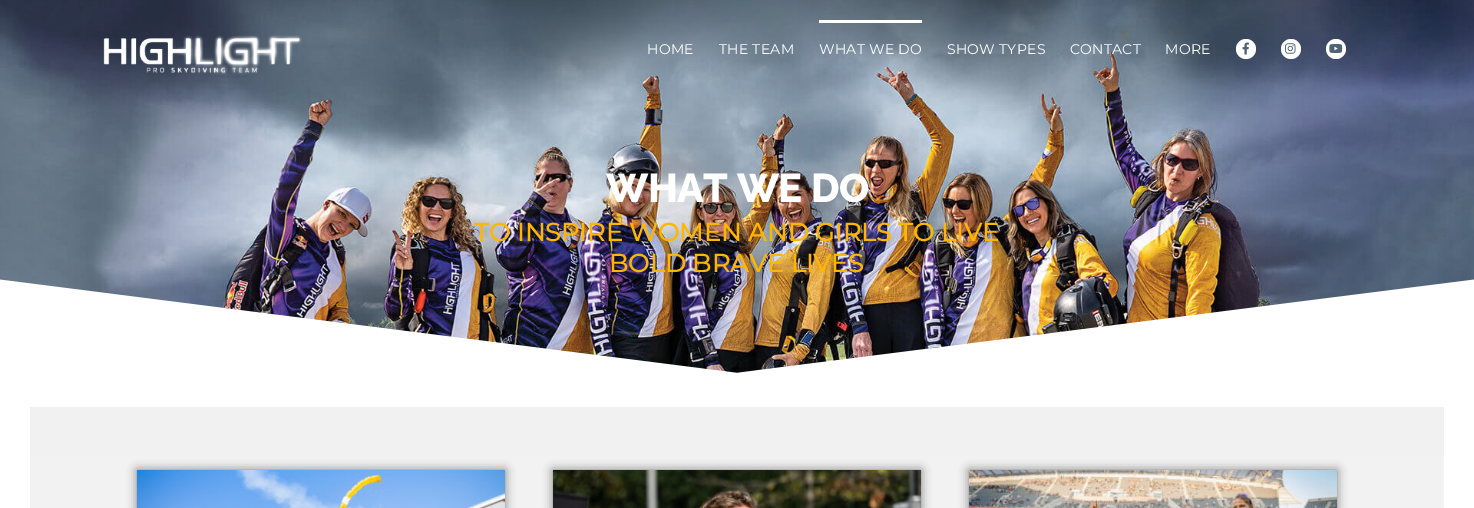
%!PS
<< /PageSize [1474 508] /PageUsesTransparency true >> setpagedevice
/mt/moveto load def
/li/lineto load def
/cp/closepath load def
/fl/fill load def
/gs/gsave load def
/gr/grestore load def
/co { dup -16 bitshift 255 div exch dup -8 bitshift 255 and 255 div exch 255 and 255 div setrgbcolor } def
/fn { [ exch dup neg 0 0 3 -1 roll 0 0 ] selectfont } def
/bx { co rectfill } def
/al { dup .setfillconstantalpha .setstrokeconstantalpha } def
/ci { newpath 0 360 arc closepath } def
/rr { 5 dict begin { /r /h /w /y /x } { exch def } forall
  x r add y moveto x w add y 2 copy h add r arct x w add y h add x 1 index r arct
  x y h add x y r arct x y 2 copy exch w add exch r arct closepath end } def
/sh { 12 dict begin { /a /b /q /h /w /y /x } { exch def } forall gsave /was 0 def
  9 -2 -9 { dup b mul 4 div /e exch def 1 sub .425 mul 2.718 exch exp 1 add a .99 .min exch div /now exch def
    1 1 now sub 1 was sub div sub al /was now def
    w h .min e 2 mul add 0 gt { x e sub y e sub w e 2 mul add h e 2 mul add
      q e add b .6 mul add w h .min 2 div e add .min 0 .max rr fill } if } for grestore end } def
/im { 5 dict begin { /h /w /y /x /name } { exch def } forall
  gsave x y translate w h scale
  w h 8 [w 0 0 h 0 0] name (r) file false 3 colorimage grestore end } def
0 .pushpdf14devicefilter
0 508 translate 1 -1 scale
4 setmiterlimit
0 0 1474 508 16#FFFFFF bx
(media/5.raw) 0 0 1474 373 im
(media/1.raw) 103 35 199 40 im
819 20 103 3 16#FFFFFF bx
1246 49 10 ci fl
(media/2.raw) 1242 42 7 13 im
1291 49 10 ci fl
(media/3.raw) 1285 43 11 11 im
1336 49 10 ci fl
(media/4.raw) 1329 44 14 9 im
gs 30 407 mt 1444 407 li 1444 508 li 30 508 li cp clip newpath
<< /ShadingType 2 /ColorSpace /DeviceRGB /Coords [737 407 737 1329] /Extend [true true] /Function << /FunctionType 2 /Domain [0 1] /C0 [.945 .945 .945] /C1 [1 1 1] /N 1 >> >> shfill gr
16#000000 co
137 470 368 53 0 5 .5 sh
(media/6.raw) 137 470 368 38 im
553 470 368 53 0 5 .5 sh
(media/7.raw) 553 470 368 38 im
969 470 368 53 0 5 .5 sh
(media/8.raw) 969 470 368 38 im
/Montserrat-Regular 14 fn
16#FFFFFF co
647 54 mt .25 0 (HOME) ashow
719 54 mt .25 0 (THE TEAM) ashow
819 54 mt .25 0 (WHAT WE DO) ashow
947 54 mt .25 0 (SHOW TYPES) ashow
1070 54 mt .25 0 (CONTACT) ashow
1165 54 mt .25 0 (MORE) ashow
/Raleway-Thin 40 fn
606 202 mt -.5 0 (WHAT WE DO) ashow
/Montserrat-Medium 26 fn
16#FFB600 co
474 241 mt -.4 0 (TO INSPIRE WOMEN AND GIRLS TO LIVE) ashow
609 272 mt -.4 0 (BOLD BRAVE LIVES) ashow
.poppdf14devicefilter showpage
